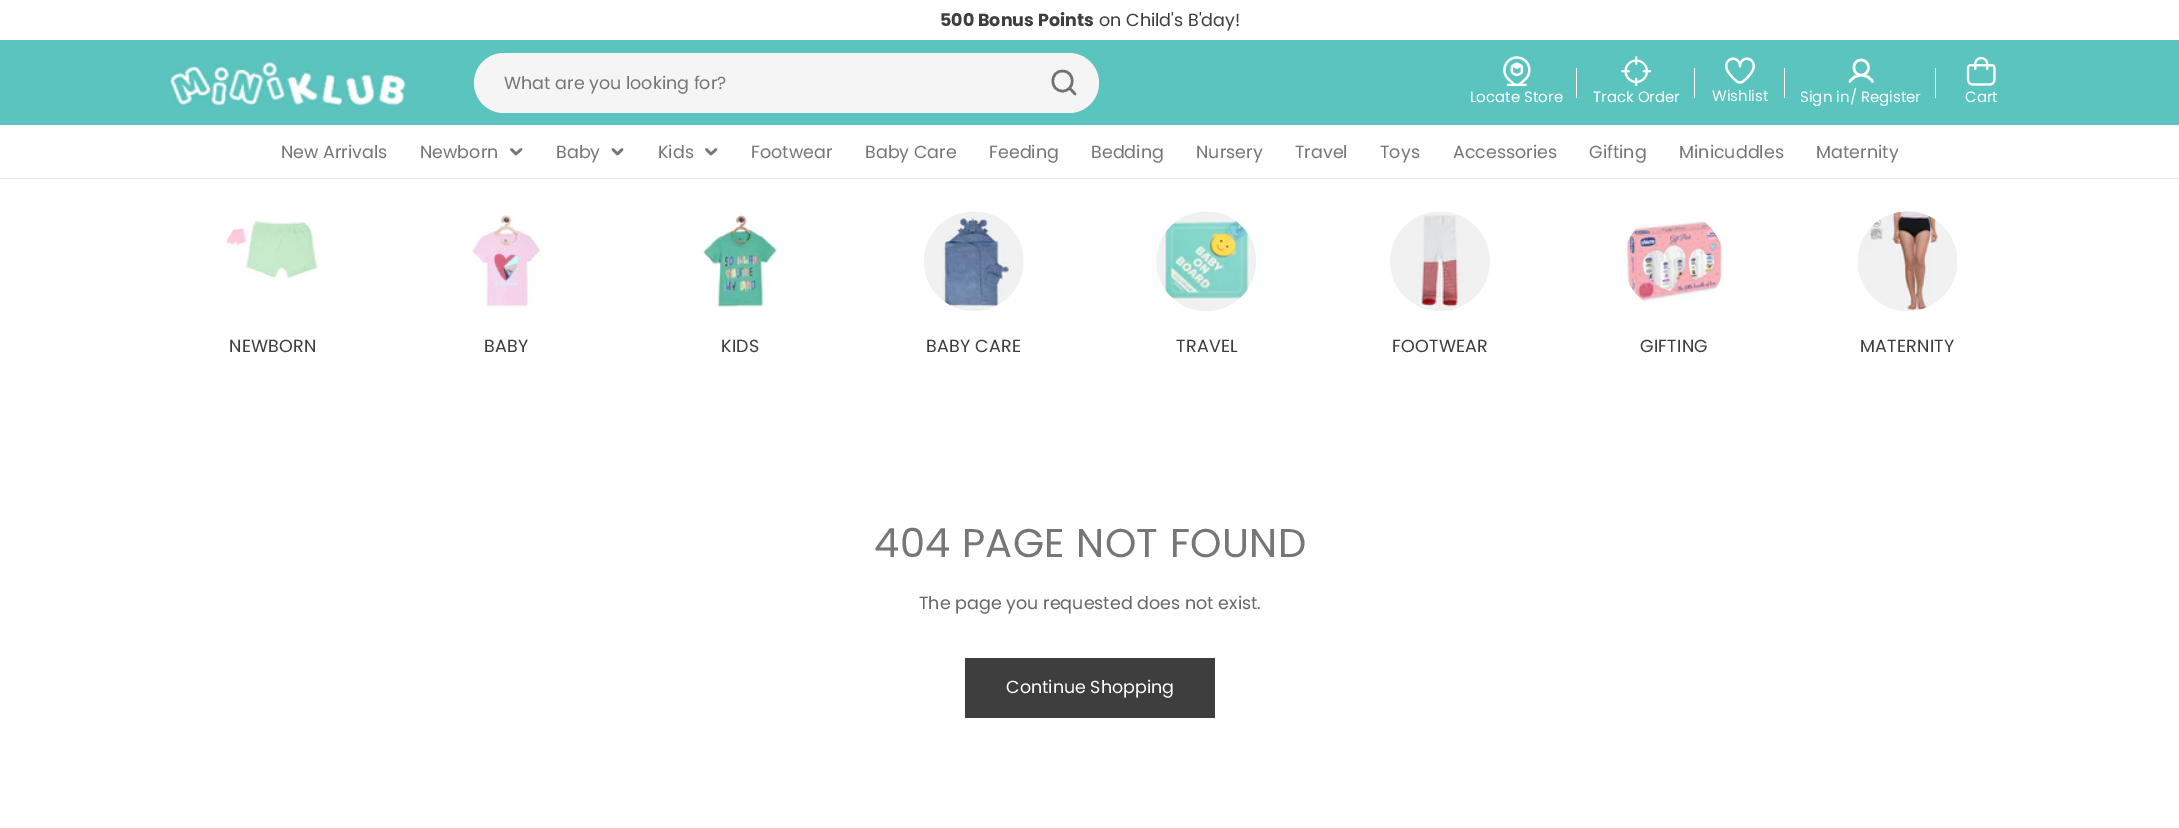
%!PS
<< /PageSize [2179 828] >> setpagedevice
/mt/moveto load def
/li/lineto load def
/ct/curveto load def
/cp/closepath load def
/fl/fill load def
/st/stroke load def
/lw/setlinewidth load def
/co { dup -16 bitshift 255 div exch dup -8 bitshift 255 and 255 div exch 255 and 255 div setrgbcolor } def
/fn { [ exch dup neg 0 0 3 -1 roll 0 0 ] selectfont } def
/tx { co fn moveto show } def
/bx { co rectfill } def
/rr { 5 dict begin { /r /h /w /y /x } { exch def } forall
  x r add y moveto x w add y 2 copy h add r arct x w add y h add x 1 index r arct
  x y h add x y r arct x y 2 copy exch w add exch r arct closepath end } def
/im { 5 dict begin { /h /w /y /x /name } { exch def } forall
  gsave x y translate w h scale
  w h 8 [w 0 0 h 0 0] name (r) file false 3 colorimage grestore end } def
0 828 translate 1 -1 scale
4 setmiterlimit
0 0 2179 828 16#FFFFFF bx
0 40 2179 85 16#5BC4BF bx
(media/1.raw) 168 60 239 46 im
16#F5F5F5 co
474 53 625 60 30 rr fl
16#727272 co
2.5 lw
1 setlinecap
1 setlinejoin
1062.5 91 mt 1075.5 91 1075.5 71 1062.5 71 ct 1049.5 71 1049.5 91 1062.5 91 ct cp 1069.5 88 mt 1075 94 li st
(media/2.raw) 1503 56 28 30 im
1576 68 1 30 16#FFFFFF bx
(media/3.raw) 1621 56 30 30 im
1694 68 1 30 16#FFFFFF bx
(media/4.raw) 1725 57 30 27 im
1784 68 1 30 16#FFFFFF bx
1861 75 mt 1871 75 1871 60 1861 60 ct 1851.5 60 1851.5 75 1861 75 ct cp 1850 81.5 mt 1855 73 1867.5 73 1872.5 81.5 ct st
1935 68 1 30 16#FFFFFF bx
(media/5.raw) 1966 56 30 30 im
0 178 2179 1 16#E5E5E5 bx
16#767676 co
521 149.5 mt 516 154 li 511.5 149.5 li st
622 149.5 mt 617.5 154 li 613 149.5 li st
716 149.5 mt 711 154 li 706.5 149.5 li st
(media/6.raw) 225 220 93 59 im
(media/7.raw) 472 215 74 92 im
(media/8.raw) 700 212 80 96 im
(media/9.raw) 924 211 100 100 im
(media/10.raw) 1156 211 100 100 im
(media/11.raw) 1390 211 100 100 im
(media/12.raw) 1624 221 100 81 im
(media/13.raw) 1858 211 99 100 im
965 658 250 60 16#3E3E3E bx
(500 Bonus Points) 940 26 /Poppins-Bold 17.5 16#3E3E3E tx
(on Child's B'day!) 1099 26 /Poppins-Regular 17.5 16#3E3E3E tx
(What are you looking for?) 504 89 /Poppins-Regular 17.5 16#767676 tx
(Locate Store) 1470 102 /Poppins-Regular 15 16#FFFFFF tx
(Track Order) 1593 102 /Poppins-Regular 15 16#FFFFFF tx
(Wishlist) 1712 101 /Poppins-Regular 15 16#FFFFFF tx
(Sign in/ Register) 1800 102 /Poppins-Regular 15 16#FFFFFF tx
(Cart) 1965 102 /Poppins-Regular 15 16#FFFFFF tx
(New Arrivals) 281 158 /Poppins-Regular 17.5 16#767676 tx
(Newborn) 420 158 /Poppins-Regular 17.5 16#767676 tx
(Baby) 556 158 /Poppins-Regular 17.5 16#767676 tx
(Kids) 658 158 /Poppins-Regular 17.5 16#767676 tx
(Footwear) 751 158 /Poppins-Regular 17.5 16#767676 tx
(Baby Care) 865 158 /Poppins-Regular 17.5 16#767676 tx
(Feeding) 989 158 /Poppins-Regular 17.5 16#767676 tx
(Bedding) 1091 158 /Poppins-Regular 17.5 16#767676 tx
(Nursery) 1196 158 /Poppins-Regular 17.5 16#767676 tx
(Travel) 1295 158 /Poppins-Regular 17.5 16#767676 tx
(Toys) 1380 158 /Poppins-Regular 17.5 16#767676 tx
(Accessories) 1453 158 /Poppins-Regular 17.5 16#767676 tx
(Gifting) 1589 158 /Poppins-Regular 17.5 16#767676 tx
(Minicuddles) 1679 158 /Poppins-Regular 17.5 16#767676 tx
(Maternity) 1816 158 /Poppins-Regular 17.5 16#767676 tx
16#3E3E3E co
229 352 mt .25 0 (NEWBORN) ashow
484 352 mt .25 0 (BABY) ashow
721 352 mt .25 0 (KIDS) ashow
926 352 mt .25 0 (BABY CARE) ashow
1176 352 mt .25 0 (TRAVEL) ashow
1392 352 mt .25 0 (FOOTWEAR) ashow
1640 352 mt .25 0 (GIFTING) ashow
1860 352 mt .25 0 (MATERNITY) ashow
/Poppins-Regular 40 fn
16#767676 co
874 557 mt .4 0 (404 PAGE NOT FOUND) ashow
(The page you requested does not exist.) 919 609 /Poppins-Regular 17.5 16#666666 tx
(Continue Shopping) 1006 693 /Poppins-Regular 17.5 16#FFFFFF tx
showpage
